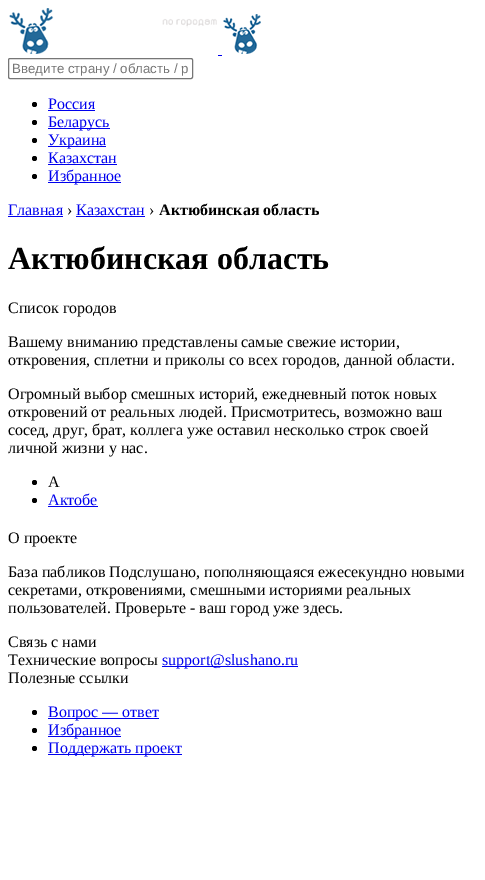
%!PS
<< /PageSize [485 880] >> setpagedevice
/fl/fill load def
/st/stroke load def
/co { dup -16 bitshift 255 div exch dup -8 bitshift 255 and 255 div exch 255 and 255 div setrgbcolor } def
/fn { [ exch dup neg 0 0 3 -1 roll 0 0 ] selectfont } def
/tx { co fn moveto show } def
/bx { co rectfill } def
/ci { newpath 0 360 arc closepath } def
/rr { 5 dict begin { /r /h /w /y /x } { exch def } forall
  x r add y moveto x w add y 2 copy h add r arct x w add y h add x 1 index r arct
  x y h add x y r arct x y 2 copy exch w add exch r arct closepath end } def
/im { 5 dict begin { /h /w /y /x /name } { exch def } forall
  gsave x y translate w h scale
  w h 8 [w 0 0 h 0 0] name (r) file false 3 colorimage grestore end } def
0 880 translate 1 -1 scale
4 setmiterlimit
0 0 485 880 16#FFFFFF bx
(media/1.raw) 9 8 208 46 im
(media/2.raw) 223 14 38 40 im
218 55 4 1 16#0000EE bx
16#767676 co
8.5 58.5 184 20 1.5 rr st
16#000000 co
34.5 104.5 2.5 ci fl
48 110 47 1 16#0000EE bx
16#000000 co
34.5 122.5 2.5 ci fl
48 128 62 1 16#0000EE bx
16#000000 co
34.5 140.5 2.5 ci fl
48 146 58 1 16#0000EE bx
16#000000 co
34.5 158.5 2.5 ci fl
48 164 69 1 16#0000EE bx
16#000000 co
34.5 176.5 2.5 ci fl
48 182 73 1 16#0000EE bx
8 216 55 1 16#0000EE bx
76 216 69 1 16#0000EE bx
16#000000 co
34.5 482.5 2.5 ci fl
34.5 500.5 2.5 ci fl
48 506 50 1 16#0000EE bx
162 666 136 1 16#0000EE bx
16#000000 co
34.5 712.5 2.5 ci fl
48 718 111 1 16#0000EE bx
16#000000 co
34.5 730.5 2.5 ci fl
48 736 73 1 16#0000EE bx
16#000000 co
34.5 748.5 2.5 ci fl
48 754 134 1 16#0000EE bx
(Введите страну / область / р) 12 73 /LiberationSans-Regular 13.3 16#757575 tx
(Россия) 48 109 /LiberationSerif-Regular 16 16#0000EE tx
(Беларусь) 48 127 /LiberationSerif-Regular 16 16#0000EE tx
(Украина) 48 145 /LiberationSerif-Regular 16 16#0000EE tx
(Казахстан) 48 163 /LiberationSerif-Regular 16 16#0000EE tx
(Избранное) 48 181 /LiberationSerif-Regular 16 16#0000EE tx
(Главная) 8 215 /LiberationSerif-Regular 16 16#0000EE tx
(›) 67 215 /LiberationSerif-Regular 16 16#000000 tx
(Казахстан) 76 215 /LiberationSerif-Regular 16 16#0000EE tx
(›) 149 215 /LiberationSerif-Regular 16 16#000000 tx
(Актюбинская область) 159 215 /LiberationSerif-Bold 16 16#000000 tx
(Актюбинская область) 8 269 /LiberationSerif-Bold 32 16#000000 tx
(Список городов) 8 313 /LiberationSerif-Regular 16 16#000000 tx
(Вашему вниманию представлены самые свежие истории,) 8 347 /LiberationSerif-Regular 16 16#000000 tx
(откровения, сплетни и приколы со всех городов, данной области.) 8 365 /LiberationSerif-Regular 16 16#000000 tx
(Огромный выбор смешных историй, ежедневный поток новых) 8 399 /LiberationSerif-Regular 16 16#000000 tx
(откровений от реальных людей. Присмотритесь, возможно ваш) 8 417 /LiberationSerif-Regular 16 16#000000 tx
(сосед, друг, брат, коллега уже оставил несколько строк своей) 8 435 /LiberationSerif-Regular 16 16#000000 tx
(личной жизни у нас.) 8 453 /LiberationSerif-Regular 16 16#000000 tx
(А) 48 487 /LiberationSerif-Regular 16 16#000000 tx
(Актобе) 48 505 /LiberationSerif-Regular 16 16#0000EE tx
(О проекте) 8 543 /LiberationSerif-Regular 16 16#000000 tx
(База пабликов Подслушано, пополняющаяся ежесекундно новыми) 8 577 /LiberationSerif-Regular 16 16#000000 tx
(секретами, откровениями, смешными историями реальных) 8 595 /LiberationSerif-Regular 16 16#000000 tx
(пользователей. Проверьте - ваш город уже здесь.) 8 613 /LiberationSerif-Regular 16 16#000000 tx
(Связь с нами) 8 647 /LiberationSerif-Regular 16 16#000000 tx
(Технические вопросы) 8 665 /LiberationSerif-Regular 16 16#000000 tx
(support@slushano.ru) 162 665 /LiberationSerif-Regular 16 16#0000EE tx
(Полезные ссылки) 8 683 /LiberationSerif-Regular 16 16#000000 tx
(Вопрос — ответ) 48 717 /LiberationSerif-Regular 16 16#0000EE tx
(Избранное) 48 735 /LiberationSerif-Regular 16 16#0000EE tx
(Поддержать проект) 48 753 /LiberationSerif-Regular 16 16#0000EE tx
showpage
